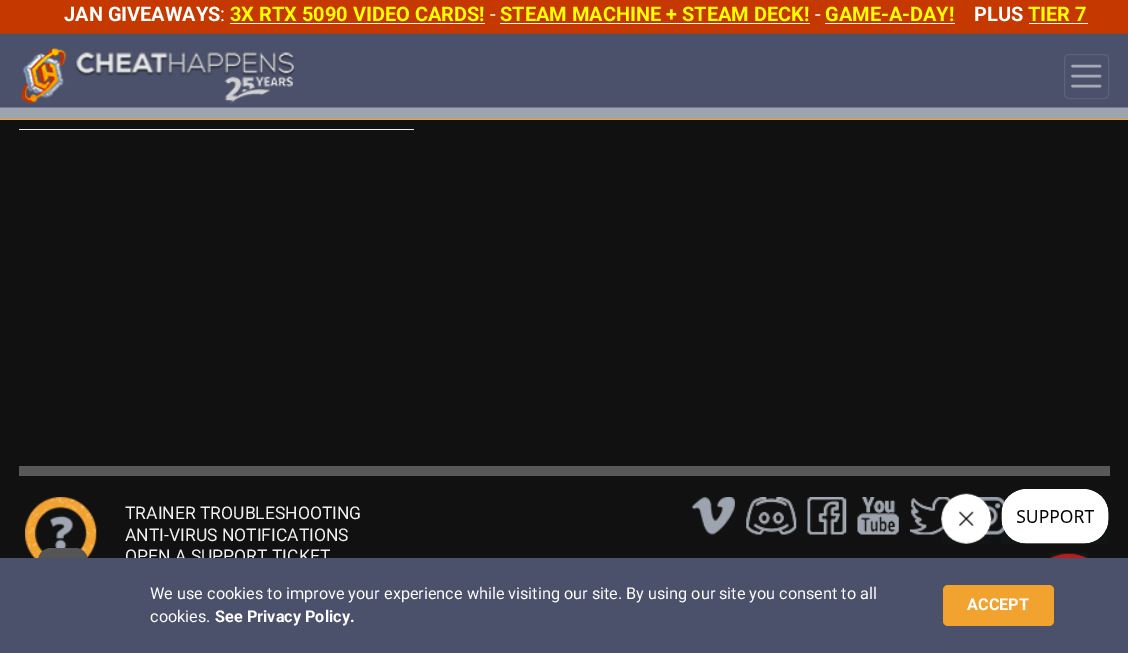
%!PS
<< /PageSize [1128 653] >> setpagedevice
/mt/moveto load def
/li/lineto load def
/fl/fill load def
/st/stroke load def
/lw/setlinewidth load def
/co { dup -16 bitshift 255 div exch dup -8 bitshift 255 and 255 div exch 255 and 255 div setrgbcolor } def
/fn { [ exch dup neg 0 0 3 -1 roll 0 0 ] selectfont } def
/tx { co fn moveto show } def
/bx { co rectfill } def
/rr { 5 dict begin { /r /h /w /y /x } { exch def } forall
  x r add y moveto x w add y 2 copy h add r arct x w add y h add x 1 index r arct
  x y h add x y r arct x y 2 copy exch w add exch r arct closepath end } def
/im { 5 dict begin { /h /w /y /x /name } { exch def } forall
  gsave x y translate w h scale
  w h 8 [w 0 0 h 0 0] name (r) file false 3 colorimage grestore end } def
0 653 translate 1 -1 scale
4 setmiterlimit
0 0 1128 653 16#111111 bx
0 0 1128 34 16#C53800 bx
230 23 255 1 16#FFFFFF bx
500 23 310 1 16#FFFFFF bx
825 23 130 1 16#FFFFFF bx
1029 23 59 1 16#FFFFFF bx
(media/1.raw) 0 33 1128 87 im
(media/2.raw) 21 48 274 56 im
16#5D627A co
1064.5 54.5 44 44 4.5 rr st
16#A5A8B5 co
2.5 lw
1 setlinecap
1072.5 66 mt 1100 66 li 1072.5 76 mt 1100 76 li 1072.5 86 mt 1100 86 li st
(media/11.raw) 910 497 46 38 im
(media/12.raw) 977 497 28 38 im
(media/3.raw) 941 493 51 51 im
(media/4.raw) 1001 489 108 55 im
(media/5.raw) 1049 553 39 5 im
(media/6.raw) 25 497 72 61 im
16#555555 co
38 548 50 81 13 rr fl
19 129 395 1 16#F0F0F0 bx
19 466 1091 10 16#585858 bx
(media/7.raw) 692 497 43 38 im
(media/8.raw) 746 497 51 38 im
(media/9.raw) 807 497 40 38 im
(media/10.raw) 857 497 42 38 im
(JAN GIVEAWAYS) 64 21 /Roboto-Bold 20 16#FFFFFF tx
(:) 220 21 /Roboto-Regular 20 16#FFFFFF tx
(3X RTX 5090 VIDEO CARDS!) 230 21 /Roboto-Bold 20 16#FFFF00 tx
(-) 490 21 /Roboto-Regular 20 16#FFFFFF tx
(STEAM MACHINE + STEAM DECK!) 500 21 /Roboto-Bold 20 16#FFFF00 tx
(-) 815 21 /Roboto-Regular 20 16#FFFFFF tx
(GAME-A-DAY!) 825 21 /Roboto-Bold 20 16#FFFF00 tx
(PLUS) 974 21 /Roboto-Bold 20 16#FFFFFF tx
(TIER 7) 1028 21 /Roboto-Bold 20 16#FFFF00 tx
(TRAINER TROUBLESHOOTING) 125 519 /Roboto-Regular 17.5 16#F0F0F0 tx
(ANTI-VIRUS NOTIFICATIONS) 125 541 /Roboto-Regular 17.5 16#F0F0F0 tx
(OPEN A SUPPORT TICKET) 125 562 /Roboto-Regular 17.5 16#F0F0F0 tx
0 558 1128 95 16#4B516B bx
(We use cookies to improve your experience while visiting our site. By using our site you consent to all) 150 599 /Roboto-Regular 16.25 16#FFFFFF tx
(cookies.) 150 622 /Roboto-Regular 16.25 16#FFFFFF tx
(See Privacy Policy.) 215 622 /Roboto-Bold 16.25 16#FFFFFF tx
16#F2A22F co
943 585 111 41 5 rr fl
(ACCEPT) 967 610 /Roboto-Bold 16.25 16#FFFFFF tx
showpage
